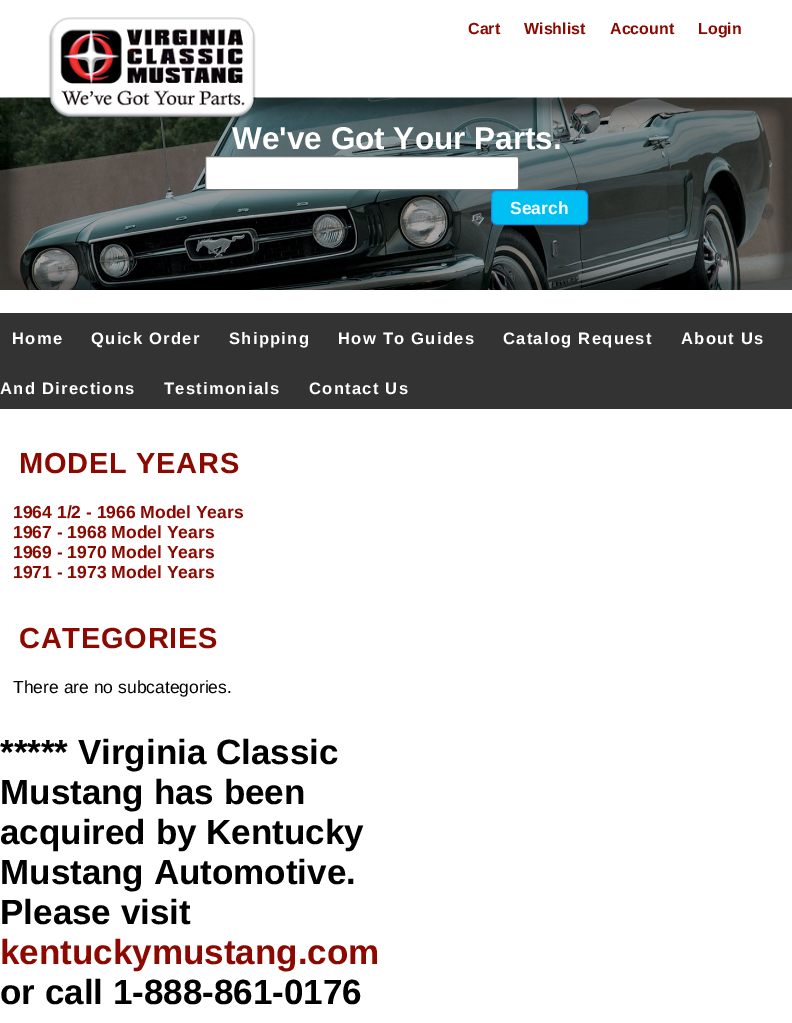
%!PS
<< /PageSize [792 1023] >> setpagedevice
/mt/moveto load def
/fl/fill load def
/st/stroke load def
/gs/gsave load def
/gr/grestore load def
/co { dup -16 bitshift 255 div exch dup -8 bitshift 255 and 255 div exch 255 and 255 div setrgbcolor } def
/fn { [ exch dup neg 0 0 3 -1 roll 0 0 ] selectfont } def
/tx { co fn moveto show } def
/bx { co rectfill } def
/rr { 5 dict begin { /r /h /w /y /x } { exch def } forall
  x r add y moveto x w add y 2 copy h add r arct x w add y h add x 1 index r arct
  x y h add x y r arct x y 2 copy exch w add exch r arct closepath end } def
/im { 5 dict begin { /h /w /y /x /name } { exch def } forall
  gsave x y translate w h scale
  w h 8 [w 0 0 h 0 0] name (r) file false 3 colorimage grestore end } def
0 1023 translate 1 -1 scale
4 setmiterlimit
0 0 792 1023 16#FFFFFF bx
(media/2.raw) 0 97 792 193 im
(media/1.raw) 48 17 208 102 im
205.5 156.5 313 33 2 rr gs fl gr
16#767676 co
st
16#00BFF3 co
491.5 190.5 96 34 5.5 rr gs fl gr
16#1C87DB co
st
0 313 792 96 16#333333 bx
(Cart) 468 34 /LiberationSans-Bold 16 16#8C0901 tx
(Wishlist) 524 34 /LiberationSans-Bold 16 16#8C0901 tx
(Account) 610 34 /LiberationSans-Bold 16 16#8C0901 tx
(Login) 698 34 /LiberationSans-Bold 16 16#8C0901 tx
(We've Got Your Parts.) 232 149 /LiberationSans-Bold 31.5 16#FFFFFF tx
(Search) 510 214 /LiberationSans-Bold 17.5 16#FFFFFF tx
/LiberationSans-Bold 16.6 fn
12 344 mt 1.25 0 (Home) ashow
91 344 mt 1.25 0 (Quick Order) ashow
229 344 mt 1.25 0 (Shipping) ashow
338 344 mt 1.25 0 (How To Guides) ashow
503 344 mt 1.25 0 (Catalog Request) ashow
681 344 mt 1.25 0 (About Us) ashow
0 394 mt 1.25 0 (And Directions) ashow
164 394 mt 1.25 0 (Testimonials) ashow
309 394 mt 1.25 0 (Contact Us) ashow
/LiberationSans-Bold 29 fn
16#8C0901 co
19 473 mt .75 0 (MODEL YEARS) ashow
(1964 1/2 - 1966 Model Years) 13 518 /LiberationSans-Bold 17.5 16#8C0901 tx
(1967 - 1968 Model Years) 13 538 /LiberationSans-Bold 17.5 16#8C0901 tx
(1969 - 1970 Model Years) 13 558 /LiberationSans-Bold 17.5 16#8C0901 tx
(1971 - 1973 Model Years) 13 578 /LiberationSans-Bold 17.5 16#8C0901 tx
/LiberationSans-Bold 29 fn
19 648 mt .75 0 (CATEGORIES) ashow
(There are no subcategories.) 13 693 /LiberationSans-Regular 17.5 16#000000 tx
(***** Virginia Classic) 0 764 /LiberationSans-Bold 35 16#000000 tx
(Mustang has been) 0 804 /LiberationSans-Bold 35 16#000000 tx
(acquired by Kentucky) 0 844 /LiberationSans-Bold 35 16#000000 tx
(Mustang Automotive.) 0 884 /LiberationSans-Bold 35 16#000000 tx
(Please visit) 0 924 /LiberationSans-Bold 35 16#000000 tx
(kentuckymustang.com) 0 964 /LiberationSans-Bold 35 16#8C0901 tx
(or call 1-888-861-0176) 0 1004 /LiberationSans-Bold 35 16#000000 tx
showpage
